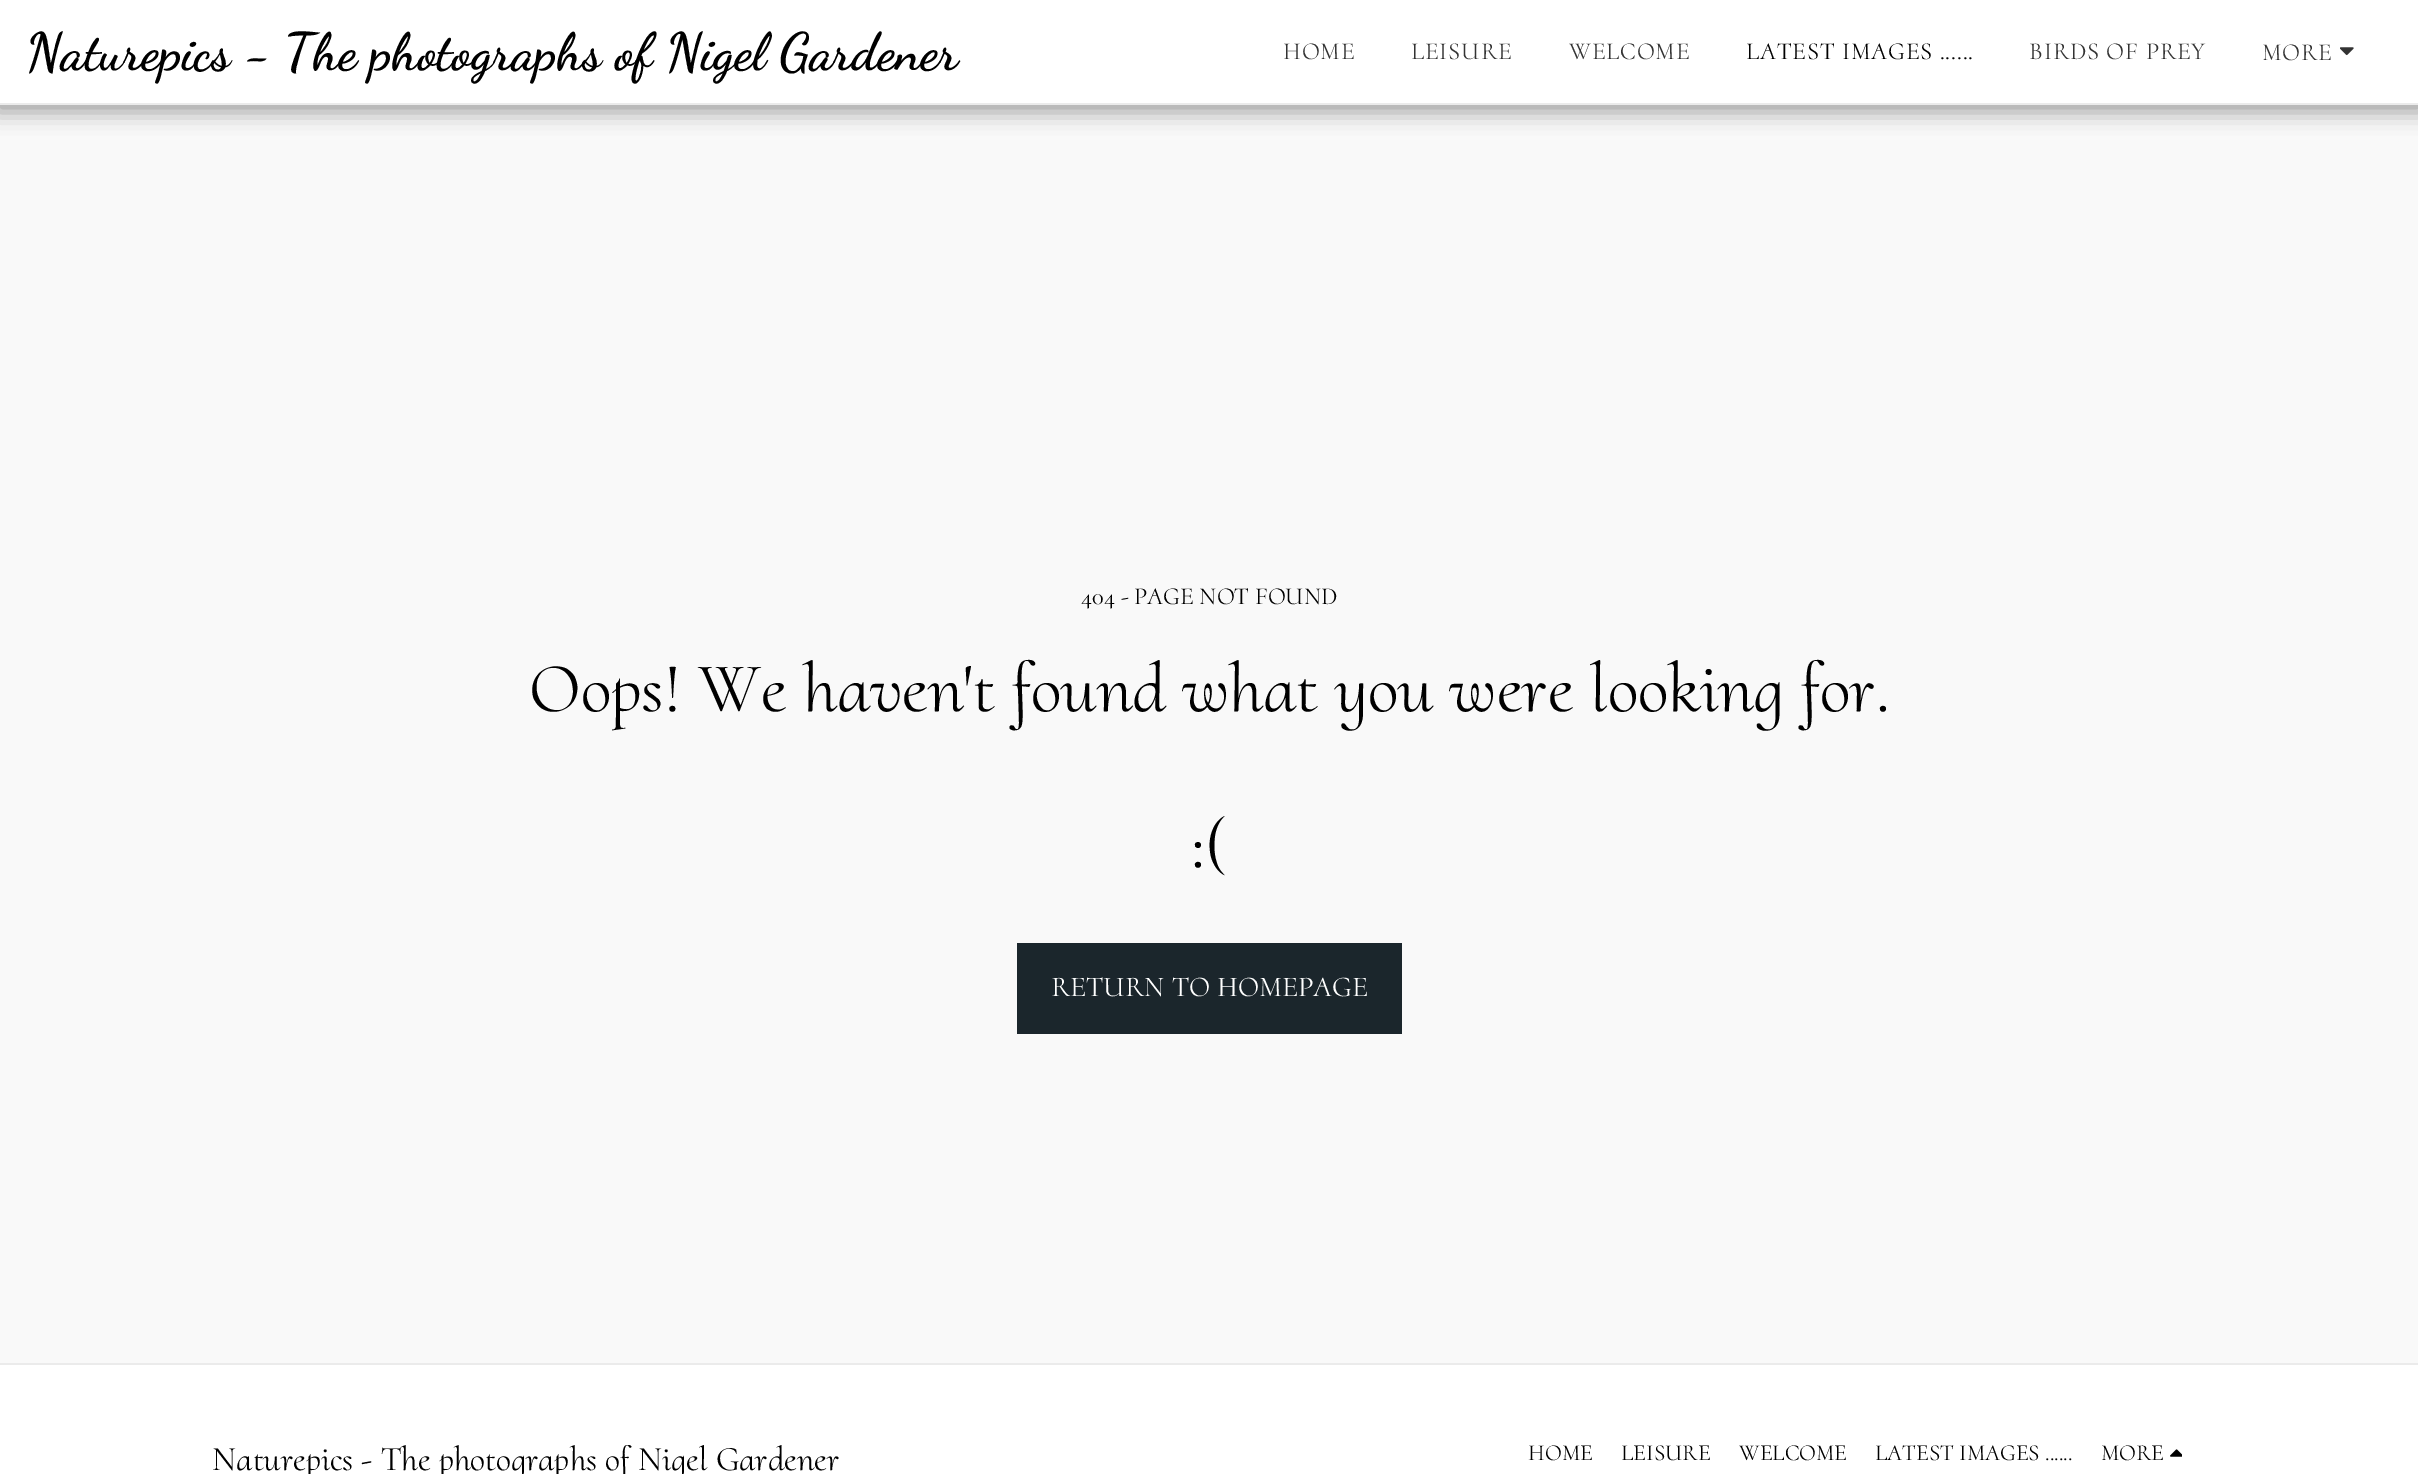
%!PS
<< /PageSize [2418 1474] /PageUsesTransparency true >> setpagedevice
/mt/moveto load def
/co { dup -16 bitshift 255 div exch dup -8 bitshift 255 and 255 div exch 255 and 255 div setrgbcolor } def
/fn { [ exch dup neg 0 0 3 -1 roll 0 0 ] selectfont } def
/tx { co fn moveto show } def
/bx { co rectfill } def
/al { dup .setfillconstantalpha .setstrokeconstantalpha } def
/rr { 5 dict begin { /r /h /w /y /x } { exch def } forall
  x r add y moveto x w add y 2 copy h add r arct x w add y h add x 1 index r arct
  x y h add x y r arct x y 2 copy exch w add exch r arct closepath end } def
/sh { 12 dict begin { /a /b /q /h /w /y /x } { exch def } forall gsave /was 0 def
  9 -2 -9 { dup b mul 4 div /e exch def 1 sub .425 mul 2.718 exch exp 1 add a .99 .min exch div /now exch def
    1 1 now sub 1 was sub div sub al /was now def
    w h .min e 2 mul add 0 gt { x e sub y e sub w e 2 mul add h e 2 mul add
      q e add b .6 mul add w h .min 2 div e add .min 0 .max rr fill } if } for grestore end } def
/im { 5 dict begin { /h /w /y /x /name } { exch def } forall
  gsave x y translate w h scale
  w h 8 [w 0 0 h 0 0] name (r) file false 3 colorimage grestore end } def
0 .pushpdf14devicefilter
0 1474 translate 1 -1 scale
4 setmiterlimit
0 0 2418 1474 16#F9F9F9 bx
16#000000 co
-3 0 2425 112 0 10.5 .35 sh
0 0 2418 103 16#FFFFFF bx
0 103 2418 2 16#EBEBEB bx
(media/1.raw) 2340 47 14 9 im
1017 943 385 91 16#1B262C bx
0 1365 2418 109 16#FFFFFF bx
0 1363 2418 2 16#EBEBEB bx
(media/2.raw) 2170 1449 12 8 im
(Naturepics - The photographs of Nigel Gardener) 26 69 /DancingScript-Bold 52.5 16#000000 tx
/CormorantUpright-Regular 24.5 fn
16#333333 co
1283 59 mt .9 0 (HOME) ashow
1411 59 mt .9 0 (LEISURE) ashow
1569 59 mt .9 0 (WELCOME) ashow
16#000000 co
1746 59 mt .9 0 (LATEST IMAGES ......) ashow
16#333333 co
2029 59 mt .9 0 (BIRDS OF PREY) ashow
2262 60 mt .9 0 (MORE) ashow
(404 - PAGE NOT FOUND) 1081 604 /CormorantUpright-Regular 24.5 16#000000 tx
(Oops! We haven't found what you were looking for.) 529 711 /CormorantUpright-Regular 70.5 16#000000 tx
(:\() 1191 867 /CormorantUpright-Regular 70.5 16#000000 tx
(RETURN TO HOMEPAGE) 1051 996 /CormorantUpright-Regular 28.9 16#FFFFFF tx
(Naturepics - The photographs of Nigel Gardener) 212 1470 /CormorantUpright-Regular 34.6 16#000000 tx
(HOME) 1528 1460 /CormorantUpright-Regular 23 16#000000 tx
(LEISURE) 1621 1460 /CormorantUpright-Regular 23 16#000000 tx
(WELCOME) 1739 1460 /CormorantUpright-Regular 23 16#000000 tx
(LATEST IMAGES ......) 1875 1460 /CormorantUpright-Regular 23 16#000000 tx
(MORE) 2101 1460 /CormorantUpright-Regular 23 16#000000 tx
.poppdf14devicefilter showpage
